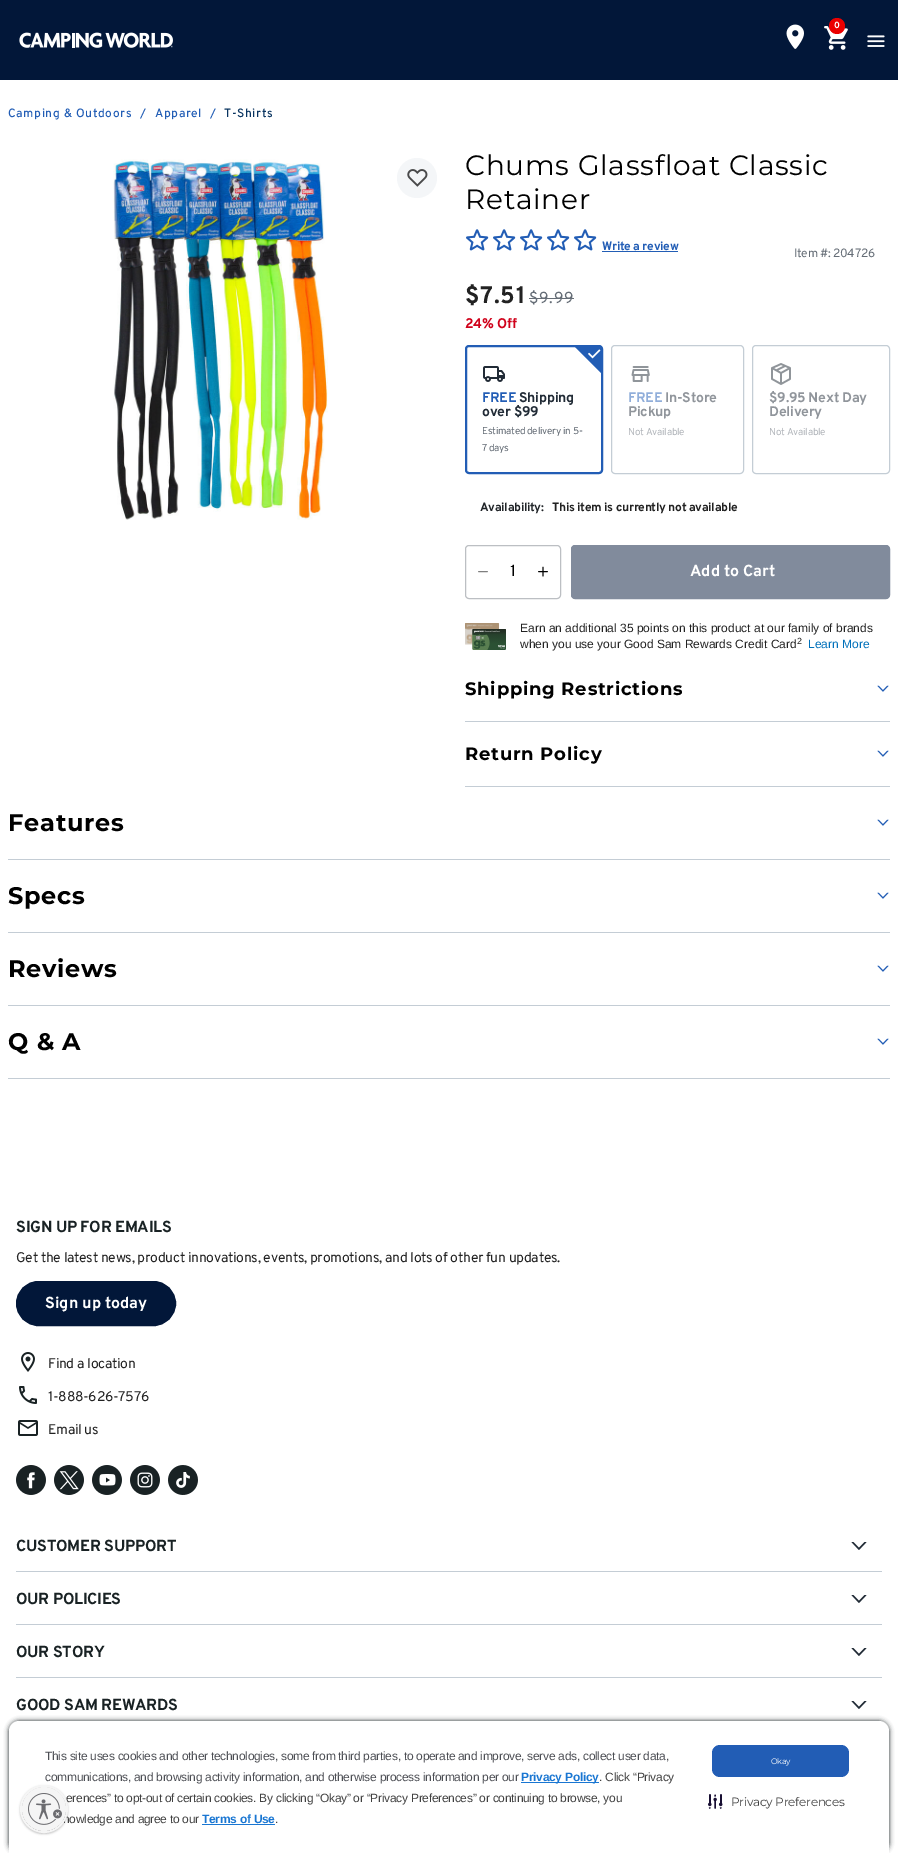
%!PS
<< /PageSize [898 1853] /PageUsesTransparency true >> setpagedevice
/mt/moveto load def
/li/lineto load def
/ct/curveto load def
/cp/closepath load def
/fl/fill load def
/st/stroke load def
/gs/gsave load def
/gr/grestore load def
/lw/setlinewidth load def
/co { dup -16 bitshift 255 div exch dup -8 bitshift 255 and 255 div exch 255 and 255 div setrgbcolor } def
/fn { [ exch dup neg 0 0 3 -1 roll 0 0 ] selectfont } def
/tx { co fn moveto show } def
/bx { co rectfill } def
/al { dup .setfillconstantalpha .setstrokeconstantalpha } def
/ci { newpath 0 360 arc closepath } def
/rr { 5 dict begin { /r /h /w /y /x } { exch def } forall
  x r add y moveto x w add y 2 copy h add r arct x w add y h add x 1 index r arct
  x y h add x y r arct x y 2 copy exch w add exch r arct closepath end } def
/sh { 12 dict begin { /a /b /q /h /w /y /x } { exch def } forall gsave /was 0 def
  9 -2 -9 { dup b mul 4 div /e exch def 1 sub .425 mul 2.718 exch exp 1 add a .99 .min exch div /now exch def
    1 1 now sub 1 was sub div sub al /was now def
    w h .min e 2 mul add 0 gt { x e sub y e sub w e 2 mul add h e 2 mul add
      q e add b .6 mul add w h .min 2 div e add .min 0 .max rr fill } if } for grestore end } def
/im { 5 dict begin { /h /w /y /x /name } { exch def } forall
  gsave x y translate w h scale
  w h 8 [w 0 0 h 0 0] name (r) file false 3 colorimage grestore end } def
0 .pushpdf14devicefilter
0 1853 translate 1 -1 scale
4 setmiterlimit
0 0 898 1853 16#FFFFFF bx
0 0 898 80 16#021739 bx
(media/1.raw) 786 24 18 25 im
(media/2.raw) 824 26 24 24 im
16#EB0000 co
837 26 8 ci fl
(media/3.raw) 867 35 18 12 im
(media/4.raw) 19 32 154 16 im
(media/5.raw) 113 159 215 361 im
16#F4F6F8 co
417 178 20 ci fl
(media/6.raw) 407 169 21 18 im
(media/7.raw) 466 229 23 22 im
(media/7.raw) 493 229 23 22 im
(media/7.raw) 520 229 23 22 im
(media/7.raw) 547 229 23 22 im
(media/7.raw) 574 229 23 22 im
602 251 76 1 16#225DB5 bx
529 298 45 1 16#656D76 bx
16#225DB5 co
2 lw
466 346 136 127 3 rr st
(media/8.raw) 483 366 22 16 im
601.5 346 mt 601.5 373.5 li 574 346 li cp fl
(media/9.raw) 588 349 13 10 im
16#C4CDD5 co
1 lw
611.5 345.5 132 128 3.5 rr st
(media/10.raw) 631 366 19 16 im
752.5 345.5 137 128 3.5 rr st
(media/11.raw) 771 363 20 22 im
16#BCBFC3 co
465.5 545.5 95 53 3.5 rr st
(media/12.raw) 478 571 10 2 im
(media/13.raw) 538 566 10 11 im
16#818B9C co
571.5 545.5 318 53 3.5 rr gs fl gr
st
(media/14.raw) 465 623 41 27 im
465 721 425 1 16#C4CDD5 bx
(media/15.raw) 877 685 12 7 im
465 786 425 1 16#C4CDD5 bx
(media/15.raw) 877 750 12 7 im
8 859 882 1 16#C4CDD5 bx
(media/15.raw) 877 819 12 7 im
8 932 882 1 16#C4CDD5 bx
(media/15.raw) 877 892 12 7 im
8 1005 882 1 16#C4CDD5 bx
(media/15.raw) 877 965 12 7 im
8 1078 882 1 16#C4CDD5 bx
(media/15.raw) 877 1038 12 7 im
16#021739 co
16.5 1281.5 159 44 22 rr gs fl gr
st
(media/16.raw) 21 1352 14 20 im
(media/17.raw) 19 1386 18 18 im
(media/18.raw) 18 1420 20 16 im
(media/19.raw) 16 1465 30 30 im
(media/20.raw) 54 1465 30 30 im
(media/21.raw) 92 1465 30 30 im
(media/22.raw) 130 1465 30 30 im
(media/23.raw) 168 1465 30 30 im
16 1571 866 1 16#C4CDD5 bx
(media/24.raw) 851 1542 16 8 im
16 1624 866 1 16#C4CDD5 bx
(media/24.raw) 851 1595 16 8 im
16 1677 866 1 16#C4CDD5 bx
(media/24.raw) 851 1648 16 8 im
(media/24.raw) 851 1701 16 8 im
16#192224 co
9 1721 880 132 10 2.5 1 sh
16#FFFFFF co
19 1721 mt 879 1721 li 884.5 1721 889 1725.5 889 1731 ct 889 1853 li 9 1853 li 9 1731 li 9 1725.5 13.5 1721 19 1721 ct cp fl
16#000000 co
20 1786 48 48 24 1 .24 sh
521 1782 78 1 16#1976D2 bx
202 1824 73 1 16#1976D2 bx
16#225DB5 co
712 1745 137 32 8 rr fl
(media/26.raw) 708 1794 15 15 im
/Overpass-Bold 9 fn
16#FFFFFF co
834 28 mt -.27 0 (0) ashow
/Overpass-Medium 12 fn
16#225DB5 co
8 117 mt .6 0 (Camping & Outdoors) ashow
140 117 mt .6 0 (/) ashow
155 117 mt .6 0 (Apparel) ashow
210 117 mt .6 0 (/) ashow
16#093460 co
224 117 mt .6 0 (T-Shirts) ashow
/Montserrat-Regular 28 fn
16#000000 co
465 175 mt .75 0 (Chums Glassfloat Classic) ashow
465 209 mt .75 0 (Retainer) ashow
/Overpass-Bold 12 fn
16#225DB5 co
602 250 mt -.27 0 (Write a review) ashow
/Overpass-Regular 12 fn
16#656D76 co
794 257 mt -.27 0 (Item #: 204726) ashow
/Overpass-Bold 24 fn
16#222222 co
465 303 mt .75 0 ($7.51) ashow
/Overpass-Regular 16 fn
16#656D76 co
529 303 mt .75 0 ($9.99) ashow
/Overpass-Bold 14 fn
16#D0021B co
465 328 mt -.27 0 (24% Off) ashow
16#225DB5 co
482 402 mt -.27 0 (FREE) ashow
16#212B36 co
519 402 mt -.27 0 (Shipping) ashow
482 416 mt -.27 0 (over $99) ashow
/Overpass-Regular 10 fn
16#656D76 co
482 434 mt -.27 0 (Estimated delivery in 5-) ashow
482 451 mt -.27 0 (7 days) ashow
/Overpass-Bold 14 fn
16#91AEDA co
628 402 mt -.27 0 (FREE) ashow
16#90959B co
665 402 mt -.27 0 (In-Store) ashow
628 416 mt -.27 0 (Pickup) ashow
/Overpass-Regular 10 fn
16#B2B6BB co
628 435 mt -.27 0 (Not Available) ashow
/Overpass-Bold 14 fn
16#90959B co
769 402 mt -.27 0 ($9.95 Next Day) ashow
769 416 mt -.27 0 (Delivery) ashow
/Overpass-Regular 10 fn
16#B2B6BB co
769 435 mt -.27 0 (Not Available) ashow
/Overpass-Bold 12 fn
16#212529 co
480 511 mt -.27 0 (Availability:) ashow
16#222222 co
552 511 mt -.27 0 (This item is currently not available) ashow
(1) 510 576 /Overpass-Regular 16 16#000000 tx
(Add to Cart) 690 576 /Overpass-Bold 16 16#FFFFFF tx
(Earn an additional 35 points on this product at our family of brands) 520 632 /LiberationSans-Regular 12 16#222222 tx
(when you use your Good Sam Rewards Credit Card) 520 648 /LiberationSans-Regular 12 16#222222 tx
(2) 797 644 /LiberationSans-Regular 9 16#222222 tx
(Learn More) 808 648 /LiberationSans-Regular 12 16#0070BA tx
/Montserrat-Bold 18 fn
16#000000 co
465 695 mt .75 0 (Shipping Restrictions) ashow
465 760 mt .75 0 (Return Policy) ashow
/Montserrat-Bold 24 fn
8 831 mt .75 0 (Features) ashow
8 904 mt .75 0 (Specs) ashow
8 977 mt .75 0 (Reviews) ashow
8 1050 mt .75 0 (Q & A) ashow
/Overpass-Bold 16 fn
16#192224 co
16 1232 mt -.27 0 (SIGN UP FOR EMAILS) ashow
/Overpass-Regular 14 fn
16#222222 co
16 1262 mt -.27 0 (Get the latest news, product innovations, events, promotions, and lots of other fun updates.) ashow
(Sign up today) 45 1308 /Overpass-Bold 16 16#FFFFFF tx
/Overpass-Regular 14 fn
16#222222 co
48 1368 mt -.27 0 (Find a location) ashow
48 1401 mt -.27 0 (1-888-626-7576) ashow
48 1434 mt -.27 0 (Email us) ashow
/Overpass-Bold 16 fn
16#192224 co
16 1551 mt -.27 0 (CUSTOMER SUPPORT) ashow
16 1604 mt -.27 0 (OUR POLICIES) ashow
16 1657 mt -.27 0 (OUR STORY) ashow
16 1710 mt -.27 0 (GOOD SAM REWARDS) ashow
/LiberationSans-Regular 12 fn
16#4C4E54 co
45 1760 mt -.27 0 (This site uses cookies and other technologies, some from third parties, to operate and improve, serve ads, collect user data,) ashow
45 1781 mt -.27 0 (communications, and browsing activity information, and otherwise process information per our) ashow
/LiberationSans-Bold 12 fn
16#1976D2 co
521 1781 mt -.27 0 (Privacy Policy) ashow
/LiberationSans-Regular 12 fn
16#404040 co
599 1781 mt -.27 0 (. Click “Privacy) ashow
66 1802 mt -.27 0 (erences” to opt-out of certain cookies. By clicking “Okay” or “Privacy Preferences” or continuing to browse, you) ashow
63 1823 mt -.27 0 (nowledge and agree to our) ashow
16#F5F5F5 co
2 lw
44 1809 23 ci st
gs
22 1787 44 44 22 rr clip newpath
16#000000 co
22 1788 44 44 22 1 .24 sh
gr
44 1809 22 ci fl
(media/25.raw) 28 1793 34 32 im
/LiberationSans-Bold 12 fn
16#1976D2 co
202 1823 mt -.27 0 (Terms of Use) ashow
/LiberationSans-Regular 12 fn
16#404040 co
275 1823 mt -.27 0 (.) ashow
/Montserrat-Regular 8 fn
16#FFFFFF co
771 1764 mt -.27 0 (Okay) ashow
/Montserrat-Regular 12 fn
16#404040 co
731 1806 mt -.27 0 (Privacy Preferences) ashow
.poppdf14devicefilter showpage
